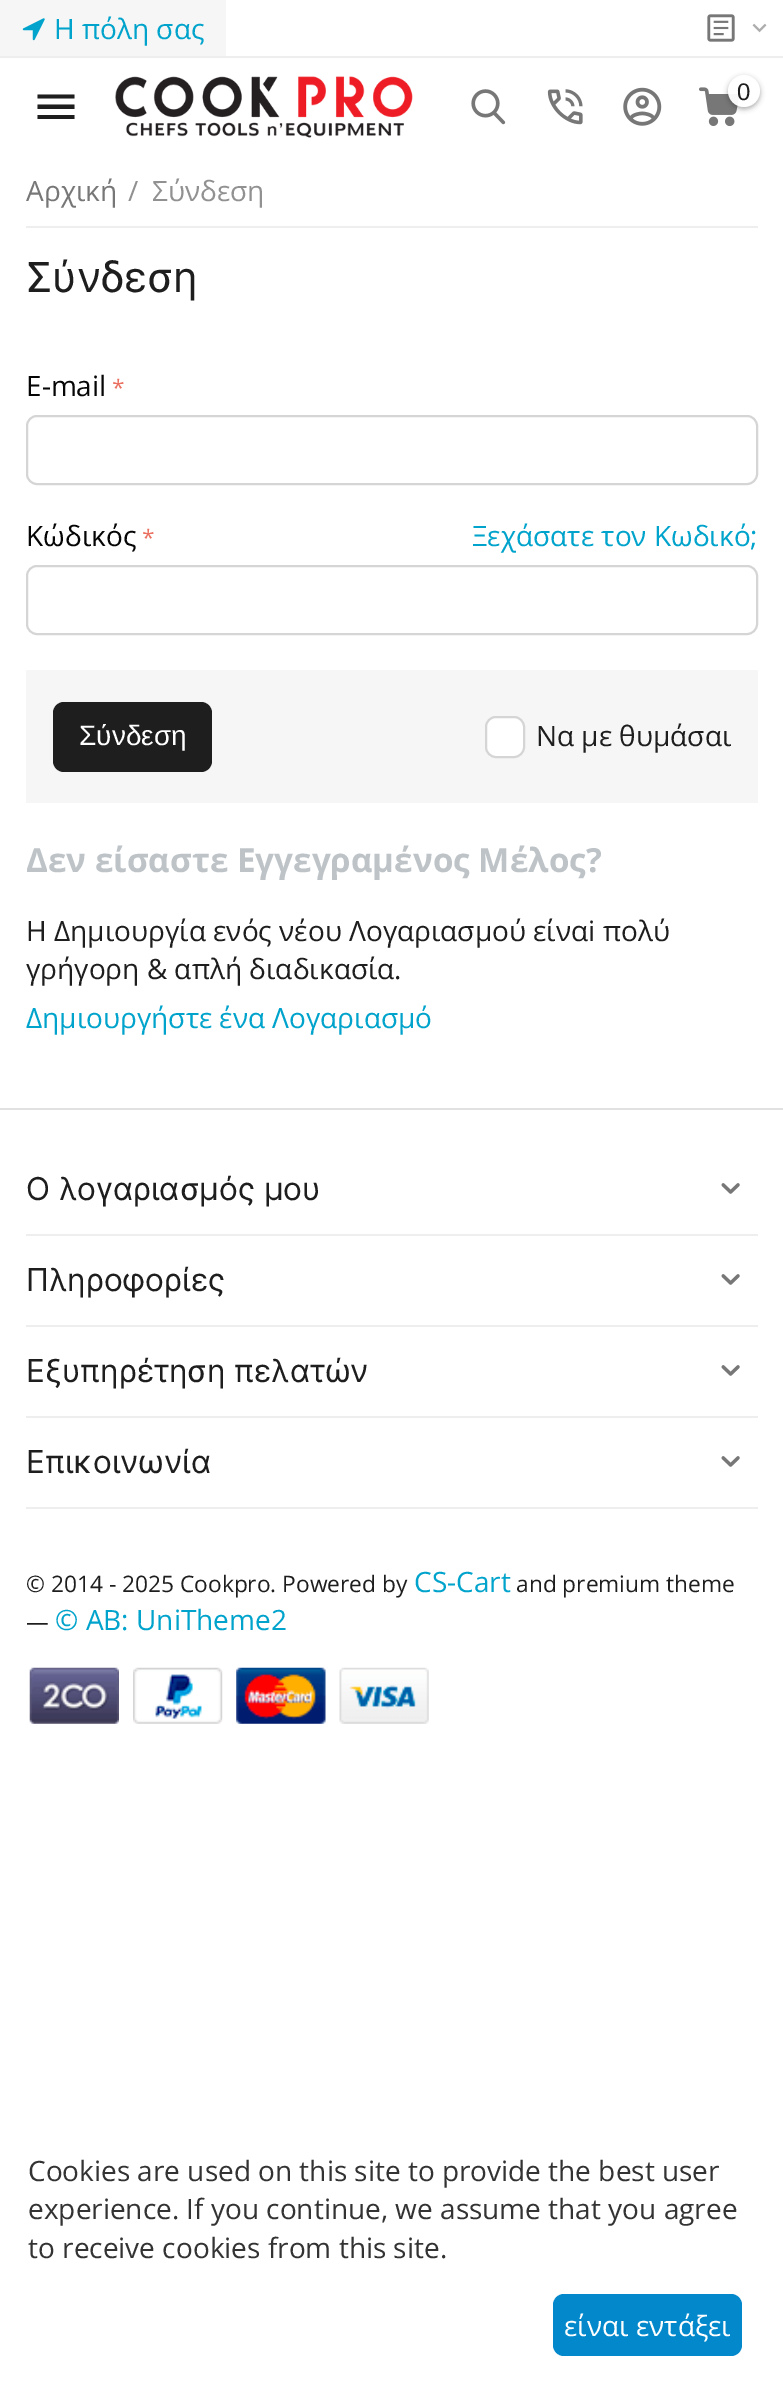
%!PS
<< /PageSize [783 2382] /PageUsesTransparency true >> setpagedevice
/mt/moveto load def
/li/lineto load def
/ct/curveto load def
/cp/closepath load def
/fl/fill load def
/st/stroke load def
/gs/gsave load def
/gr/grestore load def
/lw/setlinewidth load def
/co { dup -16 bitshift 255 div exch dup -8 bitshift 255 and 255 div exch 255 and 255 div setrgbcolor } def
/fn { [ exch dup neg 0 0 3 -1 roll 0 0 ] selectfont } def
/tx { co fn moveto show } def
/bx { co rectfill } def
/al { dup .setfillconstantalpha .setstrokeconstantalpha } def
/ci { newpath 0 360 arc closepath } def
/rr { 5 dict begin { /r /h /w /y /x } { exch def } forall
  x r add y moveto x w add y 2 copy h add r arct x w add y h add x 1 index r arct
  x y h add x y r arct x y 2 copy exch w add exch r arct closepath end } def
/sh { 12 dict begin { /a /b /q /h /w /y /x } { exch def } forall gsave /was 0 def
  9 -2 -9 { dup b mul 4 div /e exch def 1 sub .425 mul 2.718 exch exp 1 add a .99 .min exch div /now exch def
    1 1 now sub 1 was sub div sub al /was now def
    w h .min e 2 mul add 0 gt { x e sub y e sub w e 2 mul add h e 2 mul add
      q e add b .6 mul add w h .min 2 div e add .min 0 .max rr fill } if } for grestore end } def
/im { 5 dict begin { /h /w /y /x /name } { exch def } forall
  gsave x y translate w h scale
  w h 8 [w 0 0 h 0 0] name (r) file false 3 colorimage grestore end } def
0 .pushpdf14devicefilter
0 2382 translate 1 -1 scale
4 setmiterlimit
0 0 783 2382 16#FFFFFF bx
0 56 783 2 16#EEEEEE bx
0 0 226 56 16#F6F6F6 bx
(media/1.raw) 22 18 23 23 im
(media/2.raw) 707 14 28 28 im
(media/3.raw) 752 23 15 10 im
16#1E1E1E co
37.5 119 mt 74.5 119 li 74.5 115 li 37.5 115 li cp 37.5 109 mt 74.5 109 li 74.5 104.5 li 37.5 104.5 li cp 37.5 94.5 mt 37.5 98.5 li 74.5 98.5 li 74.5 94.5 li cp fl
(media/4.raw) 115 76 298 62 im
(media/5.raw) 471 89 35 36 im
(media/6.raw) 547 89 36 36 im
(media/7.raw) 623 87 39 39 im
(media/8.raw) 699 87 41 40 im
gs
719 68 mt 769 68 li 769 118 li 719 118 li cp 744 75 mt 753 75 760 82 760 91 ct 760 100 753 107 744 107 ct 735 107 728 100 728 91 ct 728 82 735 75 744 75 ct cp eoclip newpath
728 77 32 32 16 2.5 .35 sh
gr
0.95 al
16#FFFFFF co
744 91 16 ci fl
1 al
26 226 732 2 16#EEEEEE bx
16#D5D5D5 co
2 lw
27 416 730 68 10 rr st
27 566 730 68 10 rr st
26 670 732 133 16#F6F6F6 bx
16#1E1E1E co
53 702 159 70 11 rr fl
16#FFFFFF co
486 717 38 40 10 rr gs fl gr
16#D5D5D5 co
st
0 1108 783 2 16#E1E1E1 bx
26 1234 732 2 16#EEEEEE bx
(media/9.raw) 721 1183 19 11 im
26 1325 732 2 16#EEEEEE bx
(media/9.raw) 721 1274 19 11 im
26 1416 732 2 16#EEEEEE bx
(media/9.raw) 721 1365 19 11 im
26 1507 732 2 16#EEEEEE bx
(media/9.raw) 721 1456 19 11 im
(media/10.raw) 29 1667 90 57 im
(media/11.raw) 133 1667 90 57 im
(media/12.raw) 236 1667 90 57 im
(media/13.raw) 339 1667 90 57 im
16#0388CC co
553 2294 189 62 11 rr fl
(Η πόλη σας) 54 39 /OpenSans-Regular 28 16#00A3CB tx
(0) 737 100 /LiberationSans-Regular 24 16#1E1E1E tx
(Αρχική) 26 201 /OpenSans-Regular 28 16#777777 tx
(/) 128 201 /OpenSans-Regular 28 16#919191 tx
(Σύνδεση) 152 201 /OpenSans-Regular 28 16#919191 tx
(Σύνδεση) 26 292 /Inter-Regular 42 16#1E1E1E tx
(E-mail) 26 396 /OpenSans-Regular 28 16#050505 tx
(*) 112 396 /OpenSans-Regular 22.75 16#EA7162 tx
(Κώδικός) 26 546 /OpenSans-Regular 28 16#050505 tx
(*) 142 546 /OpenSans-Regular 22.75 16#EA7162 tx
(Ξεχάσατε τον Κωδικό;) 472 546 /OpenSans-Regular 28 16#00A3CB tx
(Σύνδεση) 79 745 /LiberationSans-Regular 28 16#FFFFFF tx
(Να με θυμάσαι) 536 746 /OpenSans-Regular 28 16#1E1E1E tx
(Δεν είσαστε Εγγεγραμένος Μέλος?) 26 872 /OpenSans-Bold 33.25 16#BDC3C7 tx
(Η Δημιουργία ενός νέου Λογαριασμού είναi πολύ) 26 941 /OpenSans-Regular 28 16#1E1E1E tx
(γρήγορη & απλή διαδικασία.) 26 979 /OpenSans-Regular 28 16#1E1E1E tx
(Δημιουργήστε ένα Λογαριασμό) 26 1028 /OpenSans-Regular 28 16#00A3CB tx
(Ο λογαριασμός μου) 26 1200 /Inter-Regular 31.5 16#1E1E1E tx
(Πληροφορίες) 26 1291 /Inter-Regular 31.5 16#1E1E1E tx
(Εξυπηρέτηση πελατών) 26 1382 /Inter-Regular 31.5 16#1E1E1E tx
(Επικοινωνία) 26 1473 /Inter-Regular 31.5 16#1E1E1E tx
(© 2014 - 2025 Cookpro. Powered by) 26 1592 /OpenSans-Regular 22.75 16#1E1E1E tx
(CS-Cart) 414 1592 /OpenSans-Regular 28 16#00A3CB tx
(and premium theme) 516 1592 /OpenSans-Regular 22.75 16#1E1E1E tx
(—) 26 1630 /OpenSans-Regular 22.75 16#1E1E1E tx
(© AB: UniTheme2) 55 1630 /OpenSans-Regular 28 16#00A3CB tx
(Cookies are used on this site to provide the best user) 28 2181 /OpenSans-Regular 28 16#333333 tx
(experience. If you continue, we assume that you agree) 28 2219 /OpenSans-Regular 28 16#333333 tx
(to receive cookies from this site.) 28 2258 /OpenSans-Regular 28 16#333333 tx
(είναι εντάξει) 564 2336 /OpenSans-Regular 28 16#FFFFFF tx
.poppdf14devicefilter showpage
